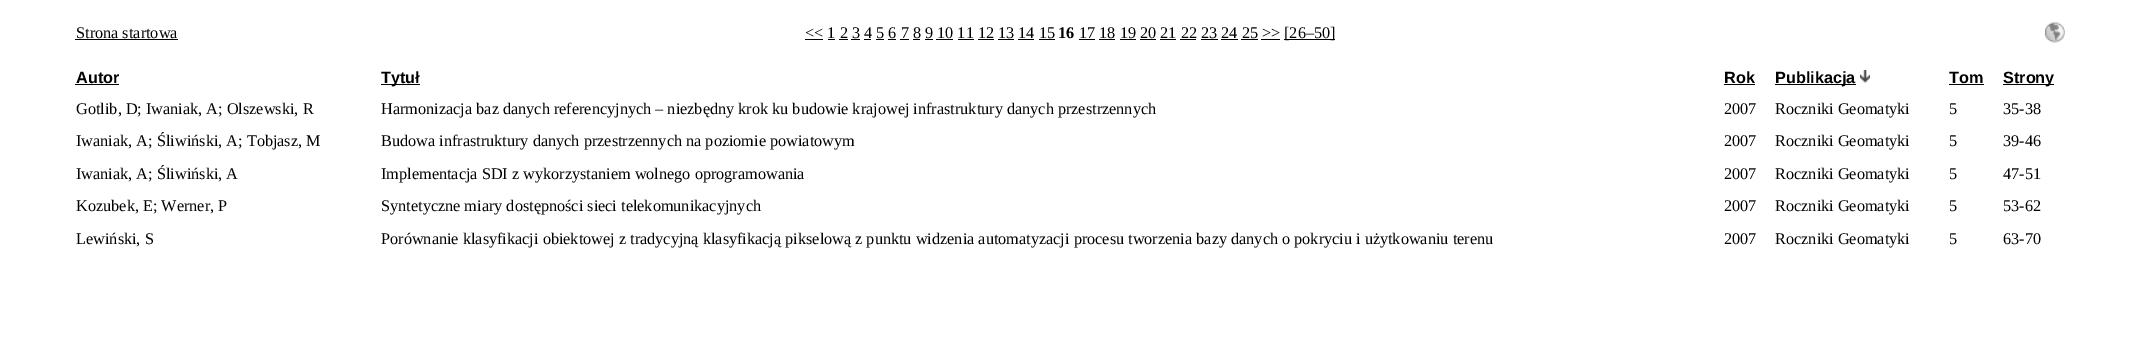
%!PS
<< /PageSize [2140 363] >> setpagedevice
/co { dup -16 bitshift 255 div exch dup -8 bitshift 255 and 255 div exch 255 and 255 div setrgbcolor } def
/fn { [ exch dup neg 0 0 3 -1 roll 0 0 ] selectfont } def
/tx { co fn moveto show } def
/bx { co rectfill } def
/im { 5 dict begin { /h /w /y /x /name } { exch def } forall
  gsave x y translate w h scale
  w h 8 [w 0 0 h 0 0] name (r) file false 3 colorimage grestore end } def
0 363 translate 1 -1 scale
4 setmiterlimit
0 0 2140 363 16#FFFFFF bx
75 39 103 1 16#000000 bx
805 39 18 1 16#000000 bx
1079 39 16 1 16#000000 bx
1284 39 51 1 16#000000 bx
828 39 7 1 16#000000 bx
839 39 9 1 16#000000 bx
851 39 9 1 16#000000 bx
864 39 7 1 16#000000 bx
876 39 8 1 16#000000 bx
888 39 8 1 16#000000 bx
900 39 9 1 16#000000 bx
913 39 7 1 16#000000 bx
925 39 8 1 16#000000 bx
936 39 17 1 16#000000 bx
958 39 16 1 16#000000 bx
978 39 16 1 16#000000 bx
998 39 16 1 16#000000 bx
1018 39 16 1 16#000000 bx
1039 39 16 1 16#000000 bx
1099 39 16 1 16#000000 bx
1120 39 16 1 16#000000 bx
1140 39 16 1 16#000000 bx
1160 39 16 1 16#000000 bx
1180 39 16 1 16#000000 bx
1201 39 17 1 16#000000 bx
1221 39 17 1 16#000000 bx
1241 39 17 1 16#000000 bx
1261 39 19 1 16#000000 bx
(media/1.raw) 2045 22 20 21 im
75 84 44 1 16#000000 bx
381 84 39 1 16#000000 bx
1724 84 31 1 16#000000 bx
1775 84 81 1 16#000000 bx
(media/2.raw) 1860 70 10 13 im
1949 84 35 1 16#000000 bx
2003 84 51 1 16#000000 bx
(Strona startowa) 76 38 /LiberationSerif-Regular 16.25 16#000000 tx
(<< 1 2 3 4 5 6 7 8 9 10 11 12 13 14 15) 805 38 /LiberationSerif-Regular 16.25 16#000000 tx
(16) 1058 38 /LiberationSerif-Bold 16.25 16#000000 tx
(17 18 19 20 21 22 23 24 25 >>) 1079 38 /LiberationSerif-Regular 16.25 16#000000 tx
([26–50]) 1284 38 /LiberationSerif-Regular 16.25 16#000000 tx
(Autor) 76 83 /LiberationSans-Bold 16.25 16#000000 tx
(Tytuł) 381 83 /LiberationSans-Bold 16.25 16#000000 tx
(Rok) 1724 83 /LiberationSans-Bold 16.25 16#000000 tx
(Publikacja) 1775 83 /LiberationSans-Bold 16.25 16#000000 tx
(Tom) 1949 83 /LiberationSans-Bold 16.25 16#000000 tx
(Strony) 2003 83 /LiberationSans-Bold 16.25 16#000000 tx
(Gotlib, D; Iwaniak, A; Olszewski, R) 76 114 /LiberationSerif-Regular 16.25 16#000000 tx
(Harmonizacja baz danych referencyjnych – niezbędny krok ku budowie krajowej infrastruktury danych przestrzennych) 381 114 /LiberationSerif-Regular 16.25 16#000000 tx
(2007) 1724 114 /LiberationSerif-Regular 16.25 16#000000 tx
(Roczniki Geomatyki) 1775 114 /LiberationSerif-Regular 16.25 16#000000 tx
(5) 1949 114 /LiberationSerif-Regular 16.25 16#000000 tx
(35-38) 2003 114 /LiberationSerif-Regular 16.25 16#000000 tx
(Iwaniak, A; Śliwiński, A; Tobjasz, M) 76 146 /LiberationSerif-Regular 16.25 16#000000 tx
(Budowa infrastruktury danych przestrzennych na poziomie powiatowym) 381 146 /LiberationSerif-Regular 16.25 16#000000 tx
(2007) 1724 146 /LiberationSerif-Regular 16.25 16#000000 tx
(Roczniki Geomatyki) 1775 146 /LiberationSerif-Regular 16.25 16#000000 tx
(5) 1949 146 /LiberationSerif-Regular 16.25 16#000000 tx
(39-46) 2003 146 /LiberationSerif-Regular 16.25 16#000000 tx
(Iwaniak, A; Śliwiński, A) 76 179 /LiberationSerif-Regular 16.25 16#000000 tx
(Implementacja SDI z wykorzystaniem wolnego oprogramowania) 381 179 /LiberationSerif-Regular 16.25 16#000000 tx
(2007) 1724 179 /LiberationSerif-Regular 16.25 16#000000 tx
(Roczniki Geomatyki) 1775 179 /LiberationSerif-Regular 16.25 16#000000 tx
(5) 1949 179 /LiberationSerif-Regular 16.25 16#000000 tx
(47-51) 2003 179 /LiberationSerif-Regular 16.25 16#000000 tx
(Kozubek, E; Werner, P) 76 211 /LiberationSerif-Regular 16.25 16#000000 tx
(Syntetyczne miary dostępności sieci telekomunikacyjnych) 381 211 /LiberationSerif-Regular 16.25 16#000000 tx
(2007) 1724 211 /LiberationSerif-Regular 16.25 16#000000 tx
(Roczniki Geomatyki) 1775 211 /LiberationSerif-Regular 16.25 16#000000 tx
(5) 1949 211 /LiberationSerif-Regular 16.25 16#000000 tx
(53-62) 2003 211 /LiberationSerif-Regular 16.25 16#000000 tx
(Lewiński, S) 76 244 /LiberationSerif-Regular 16.25 16#000000 tx
(Porównanie klasyfikacji obiektowej z tradycyjną klasyfikacją pikselową z punktu widzenia automatyzacji procesu tworzenia bazy danych o pokryciu i użytkowaniu terenu) 381 244 /LiberationSerif-Regular 16.25 16#000000 tx
(2007) 1724 244 /LiberationSerif-Regular 16.25 16#000000 tx
(Roczniki Geomatyki) 1775 244 /LiberationSerif-Regular 16.25 16#000000 tx
(5) 1949 244 /LiberationSerif-Regular 16.25 16#000000 tx
(63-70) 2003 244 /LiberationSerif-Regular 16.25 16#000000 tx
showpage
